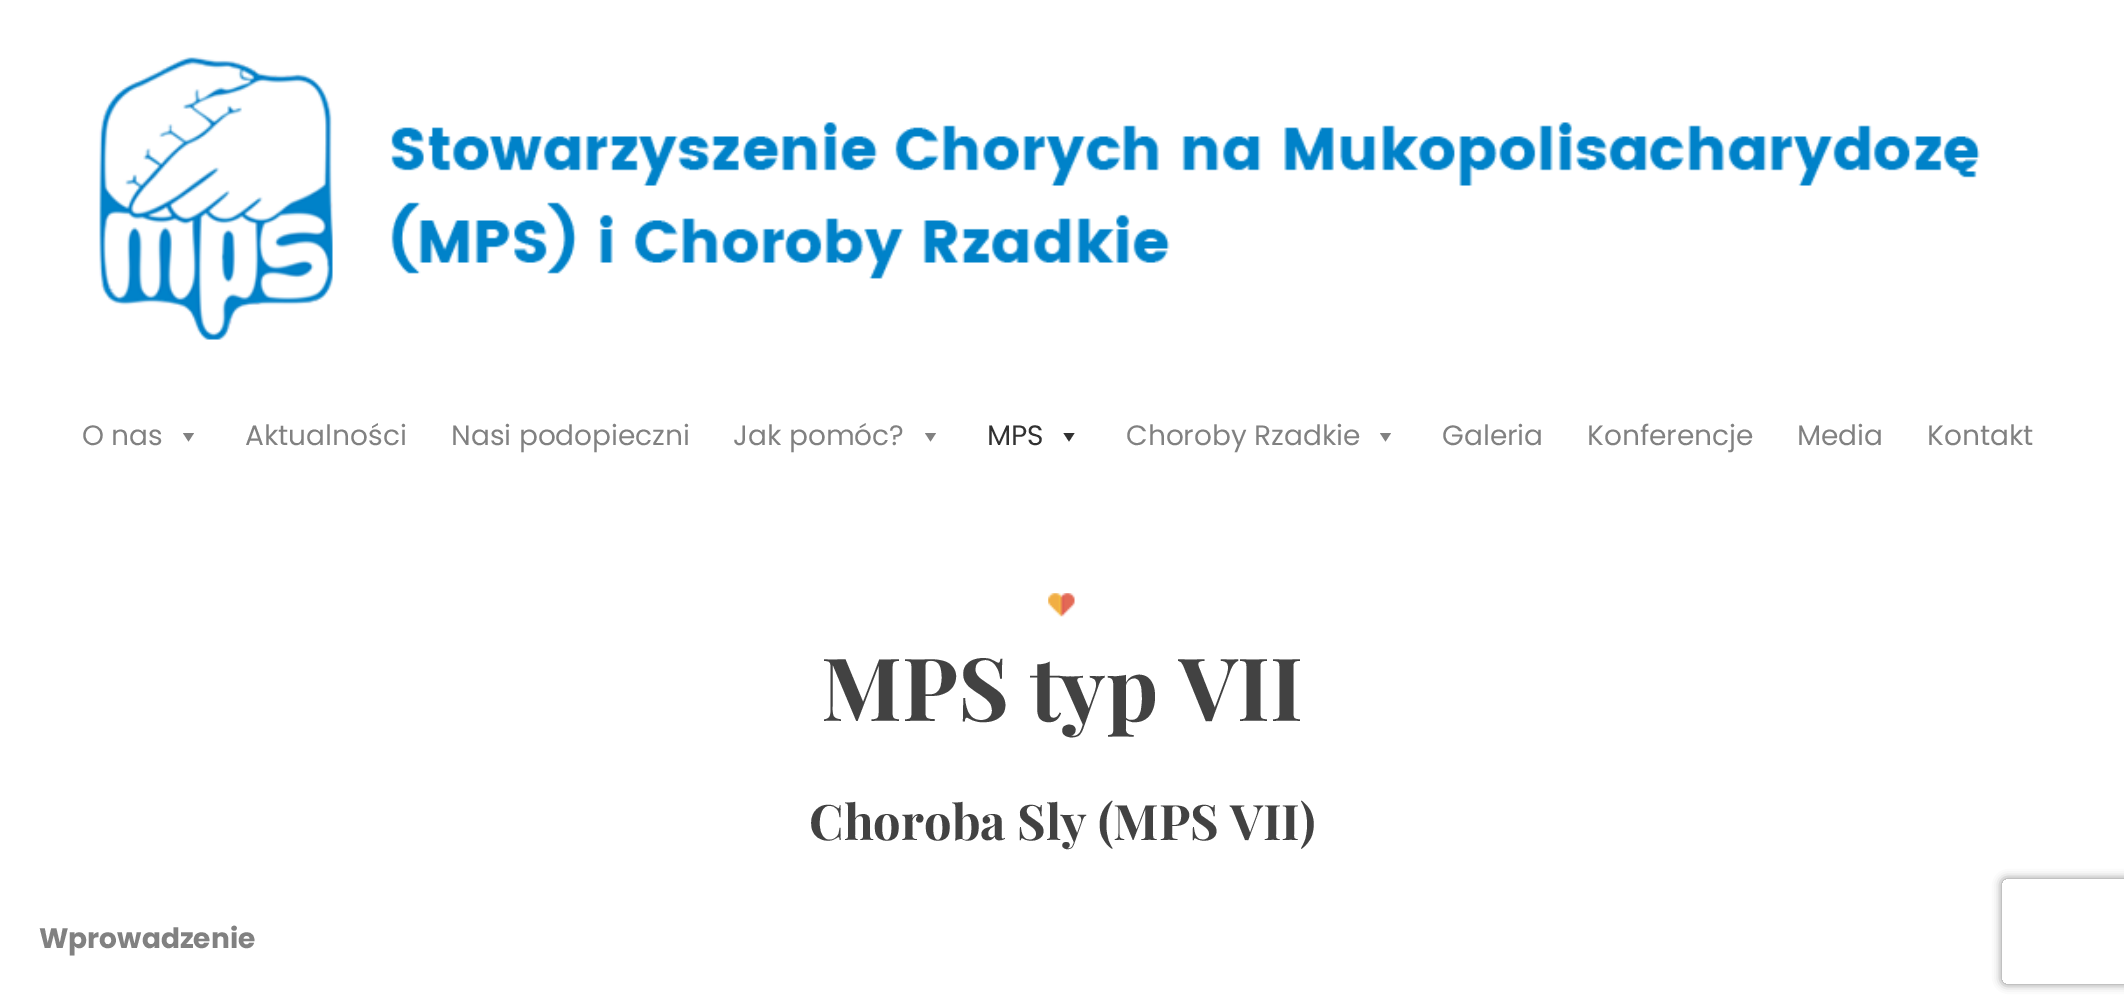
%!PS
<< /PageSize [2124 1008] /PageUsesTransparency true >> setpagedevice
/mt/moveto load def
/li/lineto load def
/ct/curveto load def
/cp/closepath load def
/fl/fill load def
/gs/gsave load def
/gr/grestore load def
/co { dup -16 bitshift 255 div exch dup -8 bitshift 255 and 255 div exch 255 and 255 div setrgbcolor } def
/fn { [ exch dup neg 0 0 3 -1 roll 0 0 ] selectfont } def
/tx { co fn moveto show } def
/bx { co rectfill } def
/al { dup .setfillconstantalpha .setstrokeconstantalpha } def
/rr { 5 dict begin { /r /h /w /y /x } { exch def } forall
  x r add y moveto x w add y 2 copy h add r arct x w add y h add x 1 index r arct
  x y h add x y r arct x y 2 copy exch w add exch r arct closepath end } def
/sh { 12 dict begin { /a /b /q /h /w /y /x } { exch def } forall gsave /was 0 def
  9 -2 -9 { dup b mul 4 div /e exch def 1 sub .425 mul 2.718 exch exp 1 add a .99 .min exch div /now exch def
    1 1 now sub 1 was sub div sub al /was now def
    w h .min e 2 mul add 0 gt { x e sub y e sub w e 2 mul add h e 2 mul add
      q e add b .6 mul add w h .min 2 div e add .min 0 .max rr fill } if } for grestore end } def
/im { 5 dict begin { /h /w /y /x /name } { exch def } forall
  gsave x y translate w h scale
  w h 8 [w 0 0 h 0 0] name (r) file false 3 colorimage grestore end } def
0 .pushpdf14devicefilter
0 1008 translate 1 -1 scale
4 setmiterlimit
0 0 2124 1008 16#FFFFFF bx
(media/1.raw) 99 57 1881 283 im
16#818181 co
194 433 mt 188.5 441.5 li 183 433 li cp fl
936 433 mt 930.5 441.5 li 925 433 li cp fl
16#313131 co
1074.5 433 mt 1069 441.5 li 1063.5 433 li cp fl
16#818181 co
1391 433 mt 1385.5 441.5 li 1380 433 li cp fl
(media/2.raw) 1048 593 27 24 im
gs
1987 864 mt 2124 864 li 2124 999 li 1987 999 li cp 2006 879 mt 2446 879 li 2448 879 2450 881 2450 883 ct 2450 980 li 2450 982 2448 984 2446 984 ct 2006 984 li 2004 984 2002 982 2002 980 ct 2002 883 li 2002 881 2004 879 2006 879 ct cp eoclip newpath
16#808080 co
2002 879 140 105 4 4.5 1 sh
gr
(O nas) 82 445 /Poppins-Regular 28 16#818181 tx
(Aktualności) 245 445 /Poppins-Regular 28 16#818181 tx
(Nasi podopieczni) 451 445 /Poppins-Regular 28 16#818181 tx
(Jak pomóc?) 733 445 /Poppins-Regular 28 16#818181 tx
(MPS) 987 445 /Poppins-Regular 28 16#313131 tx
(Choroby Rzadkie) 1126 445 /Poppins-Regular 28 16#818181 tx
(Galeria) 1442 445 /Poppins-Regular 28 16#818181 tx
(Konferencje) 1587 445 /Poppins-Regular 28 16#818181 tx
(Media) 1797 445 /Poppins-Regular 28 16#818181 tx
(Kontakt) 1927 445 /Poppins-Regular 28 16#818181 tx
(MPS typ VII) 821 721 /PlayfairDisplay-Bold 87.5 16#424242 tx
(Choroba Sly \(MPS VII\)) 809 840 /PlayfairDisplay-Bold 49 16#424242 tx
(Wprowadzenie) 39 948 /Poppins-Bold 28 16#818181 tx
.poppdf14devicefilter showpage
